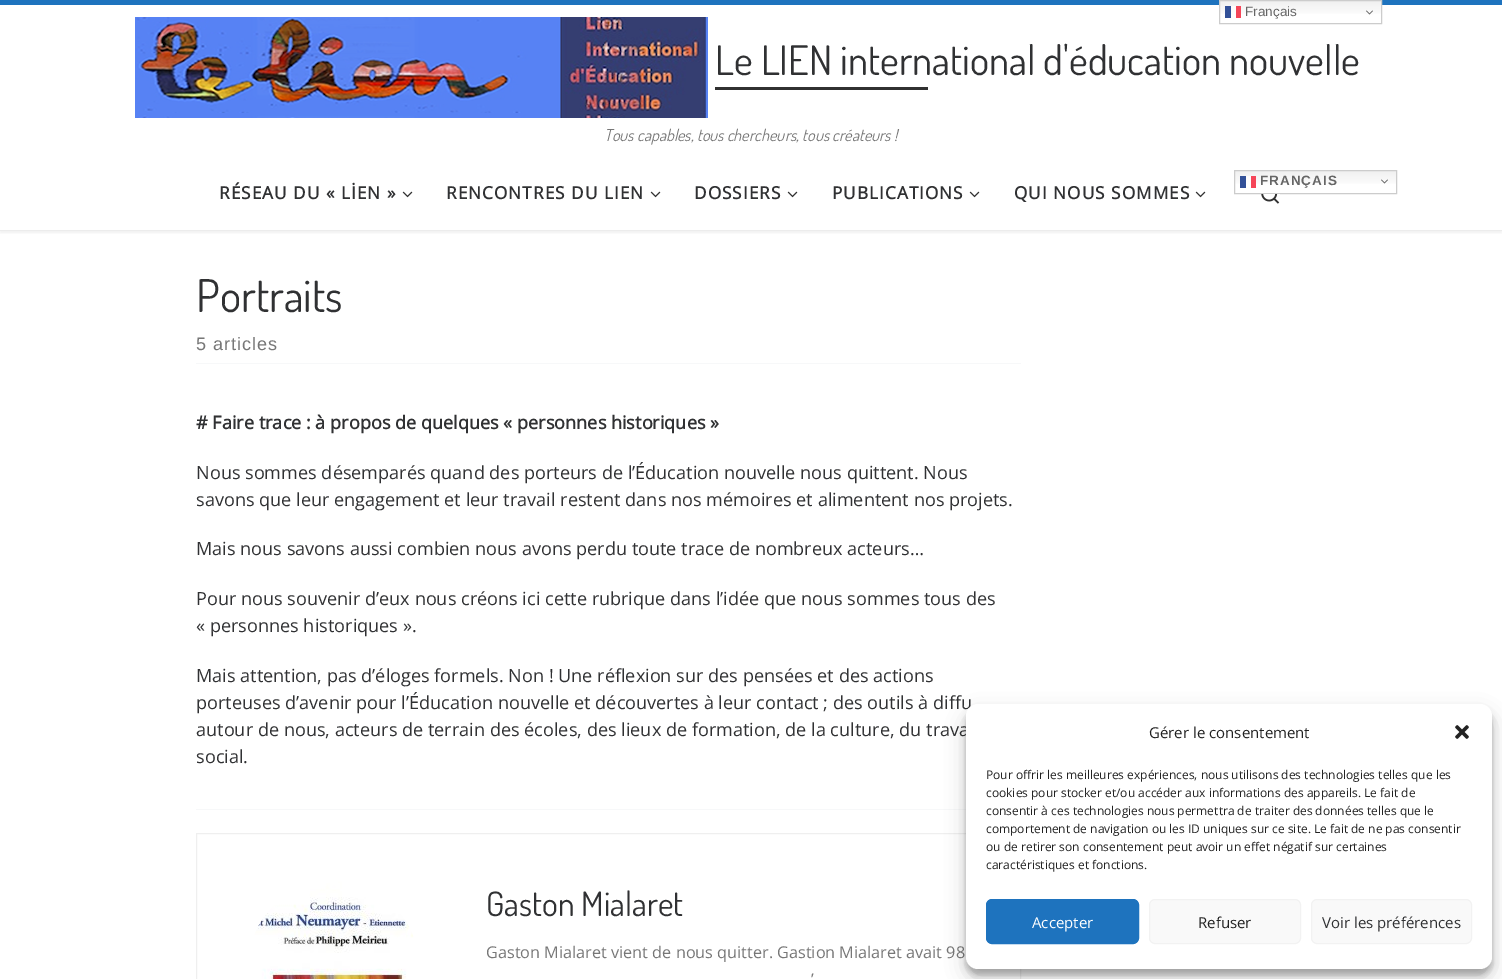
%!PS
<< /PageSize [1502 979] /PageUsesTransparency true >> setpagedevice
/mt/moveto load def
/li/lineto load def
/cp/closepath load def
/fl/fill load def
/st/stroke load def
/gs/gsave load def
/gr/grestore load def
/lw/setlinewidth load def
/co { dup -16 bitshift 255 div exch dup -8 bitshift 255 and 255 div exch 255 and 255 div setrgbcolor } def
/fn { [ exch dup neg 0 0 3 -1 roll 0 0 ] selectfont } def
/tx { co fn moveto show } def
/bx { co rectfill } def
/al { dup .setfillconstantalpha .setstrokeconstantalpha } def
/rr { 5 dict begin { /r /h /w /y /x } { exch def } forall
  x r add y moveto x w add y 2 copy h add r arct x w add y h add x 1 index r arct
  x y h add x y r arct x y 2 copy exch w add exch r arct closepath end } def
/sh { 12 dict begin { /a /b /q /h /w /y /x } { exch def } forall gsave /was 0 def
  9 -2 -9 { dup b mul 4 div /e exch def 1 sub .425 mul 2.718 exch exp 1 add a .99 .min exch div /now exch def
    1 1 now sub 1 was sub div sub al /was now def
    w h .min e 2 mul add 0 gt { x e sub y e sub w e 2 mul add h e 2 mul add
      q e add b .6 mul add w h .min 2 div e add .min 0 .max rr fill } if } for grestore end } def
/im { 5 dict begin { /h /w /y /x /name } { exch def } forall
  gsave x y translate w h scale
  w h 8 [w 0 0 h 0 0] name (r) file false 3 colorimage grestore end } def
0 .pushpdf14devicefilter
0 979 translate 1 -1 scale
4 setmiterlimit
0 0 1502 979 16#FFFFFF bx
gs
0 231 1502 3 rectclip
16#666666 co
0 2 1502 231 0 1 .08 sh
gr
0 0 1502 5 16#1E73BE bx
gs 1220 1 mt 1381 1 li 1381 14 li 1220 14 li cp clip newpath
<< /ShadingType 2 /ColorSpace /DeviceRGB /Coords [1301 0 1301 24] /Extend [true true] /Function << /FunctionType 3 /Domain [0 1] /Functions [<< /FunctionType 2 /Domain [0 1] /C0 [.937 .937 .937] /C1 [1 1 1] /N 1 >> << /FunctionType 2 /Domain [0 1] /C0 [1 1 1] /C1 [1 1 1] /N 1 >>] /Bounds [.7] /Encode [0 1 0 1] >> >> shfill gr
gs 1231 6 mt 1236 6 li 1236 18 li 1231 18 li cp clip newpath
<< /ShadingType 2 /ColorSpace /DeviceRGB /Coords [1301 0 1301 24] /Extend [true true] /Function << /FunctionType 3 /Domain [0 1] /Functions [<< /FunctionType 2 /Domain [0 1] /C0 [.988 .988 .988] /C1 [1 1 1] /N 1 >> << /FunctionType 2 /Domain [0 1] /C0 [1 1 1] /C1 [1 1 1] /N 1 >>] /Bounds [.7] /Encode [0 1 0 1] >> >> shfill gr
16#CCCCCC co
1219.5 .5 162 23 rectstroke
1225 6 6 12 16#335198 bx
1236 6 5 12 16#F54659 bx
(media/1.raw) 1366 10 7 5 im
0 230 1502 1 16#ECECEC bx
(media/2.raw) 135 17 573 101 im
715 87 213 3 16#313131 bx
(media/3.raw) 402 191 11 7 im
(media/3.raw) 650 191 11 7 im
(media/3.raw) 787 191 11 7 im
(media/3.raw) 969 191 11 7 im
(media/3.raw) 1195 191 11 7 im
gs 1235 171 mt 1396 171 li 1396 184 li 1235 184 li cp clip newpath
<< /ShadingType 2 /ColorSpace /DeviceRGB /Coords [1316 170 1316 194] /Extend [true true] /Function << /FunctionType 3 /Domain [0 1] /Functions [<< /FunctionType 2 /Domain [0 1] /C0 [.937 .937 .937] /C1 [1 1 1] /N 1 >> << /FunctionType 2 /Domain [0 1] /C0 [1 1 1] /C1 [1 1 1] /N 1 >>] /Bounds [.7] /Encode [0 1 0 1] >> >> shfill gr
gs 1246 176 mt 1251 176 li 1251 188 li 1246 188 li cp clip newpath
<< /ShadingType 2 /ColorSpace /DeviceRGB /Coords [1316 170 1316 194] /Extend [true true] /Function << /FunctionType 3 /Domain [0 1] /Functions [<< /FunctionType 2 /Domain [0 1] /C0 [.988 .988 .988] /C1 [1 1 1] /N 1 >> << /FunctionType 2 /Domain [0 1] /C0 [1 1 1] /C1 [1 1 1] /N 1 >>] /Bounds [.7] /Encode [0 1 0 1] >> >> shfill gr
16#CCCCCC co
1234.5 170.5 162 23 rectstroke
1240 176 6 12 16#335198 bx
1251 176 5 12 16#F54659 bx
(media/4.raw) 1381 179 7 5 im
(media/5.raw) 1261 194 19 10 im
196 363 825 1 16#F7F8F9 bx
196 809 770 1 16#F7F8F9 bx
(media/6.raw) 248 881 171 98 im
(Français) 1245 16 /LiberationSans-Regular 13.5 16#666666 tx
(Le LIEN international d'éducation nouvelle) 715 75 /Dosis-Regular 40.7 16#303133 tx
(Tous capables, tous chercheurs, tous créateurs !) 604 141 /Dosis-Italic 16.25 16#777777 tx
/OpenSans-Bold 17.25 fn
16#303133 co
219 199 mt 1 0 (RÉSEAU DU « LİEN ») ashow
446 199 mt 1 0 (RENCONTRES DU LIEN) ashow
694 199 mt 1 0 (DOSSIERS) ashow
832 199 mt 1 0 (PUBLICATIONS) ashow
1014 199 mt 1 0 (QUI NOUS SOMMES) ashow
/LiberationSans-Bold 13.5 fn
16#666666 co
1260 185 mt 1 0 (FRANÇAIS) ashow
(Portraits) 196 312 /Dosis-Regular 45 16#303133 tx
/LiberationSans-Regular 18.1 fn
16#777777 co
196 350 mt 1 0 (5 articles) ashow
(# Faire trace : à propos de quelques « personnes historiques ») 196 429 /OpenSans-Bold 18.1 16#303133 tx
(Nous sommes désemparés quand des porteurs de l’Éducation nouvelle nous quittent. Nous) 196 479 /OpenSans-Regular 18.1 16#303133 tx
(savons que leur engagement et leur travail restent dans nos mémoires et alimentent nos projets.) 196 506 /OpenSans-Regular 18.1 16#303133 tx
(Mais nous savons aussi combien nous avons perdu toute trace de nombreux acteurs…) 196 555 /OpenSans-Regular 18.1 16#303133 tx
(Pour nous souvenir d’eux nous créons ici cette rubrique dans l’idée que nous sommes tous des) 196 605 /OpenSans-Regular 18.1 16#303133 tx
(« personnes historiques ».) 196 632 /OpenSans-Regular 18.1 16#303133 tx
(Mais attention, pas d’éloges formels. Non ! Une réflexion sur des pensées et des actions) 196 682 /OpenSans-Regular 18.1 16#303133 tx
(porteuses d’avenir pour l’Éducation nouvelle et découvertes à leur contact ; des outils à diffu) 196 709 /OpenSans-Regular 18.1 16#303133 tx
(autour de nous, acteurs de terrain des écoles, des lieux de formation, de la culture, du trava) 196 736 /OpenSans-Regular 18.1 16#303133 tx
(social.) 196 763 /OpenSans-Regular 18.1 16#303133 tx
gs
198 841 270 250 rectclip
16#FFFFFF co
150 lw
173 806 321 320 160 rr st
gr
16#EFEFEF co
196.5 833.5 824 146 rectstroke
(Gaston Mialaret) 486 916 /Dosis-Regular 33.75 16#303133 tx
(Gaston Mialaret vient de nous quitter. Gastion Mialaret avait 98) 486 958 /OpenSans-Regular 16.25 16#777777 tx
(’) 811 985 /OpenSans-Regular 16.25 16#777777 tx
16#000000 co
966 710 526 265 12 3 .23 sh
966 714 526 265 12 10 .19 sh
16#FFFFFF co
966 704 526 265 12 rr fl
(Gérer le consentement) 1149 738 /OpenSans-Regular 15 16#222222 tx
(media/7.raw) 1455 725 14 14 im
(Pour offrir les meilleures expériences, nous utilisons des technologies telles que les) 986 779 /OpenSans-Regular 12 16#222222 tx
(cookies pour stocker et/ou accéder aux informations des appareils. Le fait de) 986 797 /OpenSans-Regular 12 16#222222 tx
(consentir à ces technologies nous permettra de traiter des données telles que le) 986 815 /OpenSans-Regular 12 16#222222 tx
(comportement de navigation ou les ID uniques sur ce site. Le fait de ne pas consentir) 986 833 /OpenSans-Regular 12 16#222222 tx
(ou de retirer son consentement peut avoir un effet négatif sur certaines) 986 851 /OpenSans-Regular 12 16#222222 tx
(caractéristiques et fonctions.) 986 869 /OpenSans-Regular 12 16#222222 tx
16#1E73BE co
986.5 899.5 152 44 5.5 rr gs fl gr
st
(Accepter) 1032 928 /OpenSans-Regular 15 16#FFFFFF tx
16#F9F9F9 co
1149.5 899.5 151 44 5.5 rr gs fl gr
16#F2F2F2 co
st
(Refuser) 1198 928 /OpenSans-Regular 15 16#222222 tx
16#F9F9F9 co
1311.5 899.5 160 44 5.5 rr gs fl gr
16#F2F2F2 co
st
(Voir les préférences) 1322 928 /OpenSans-Regular 15 16#303133 tx
.poppdf14devicefilter showpage
